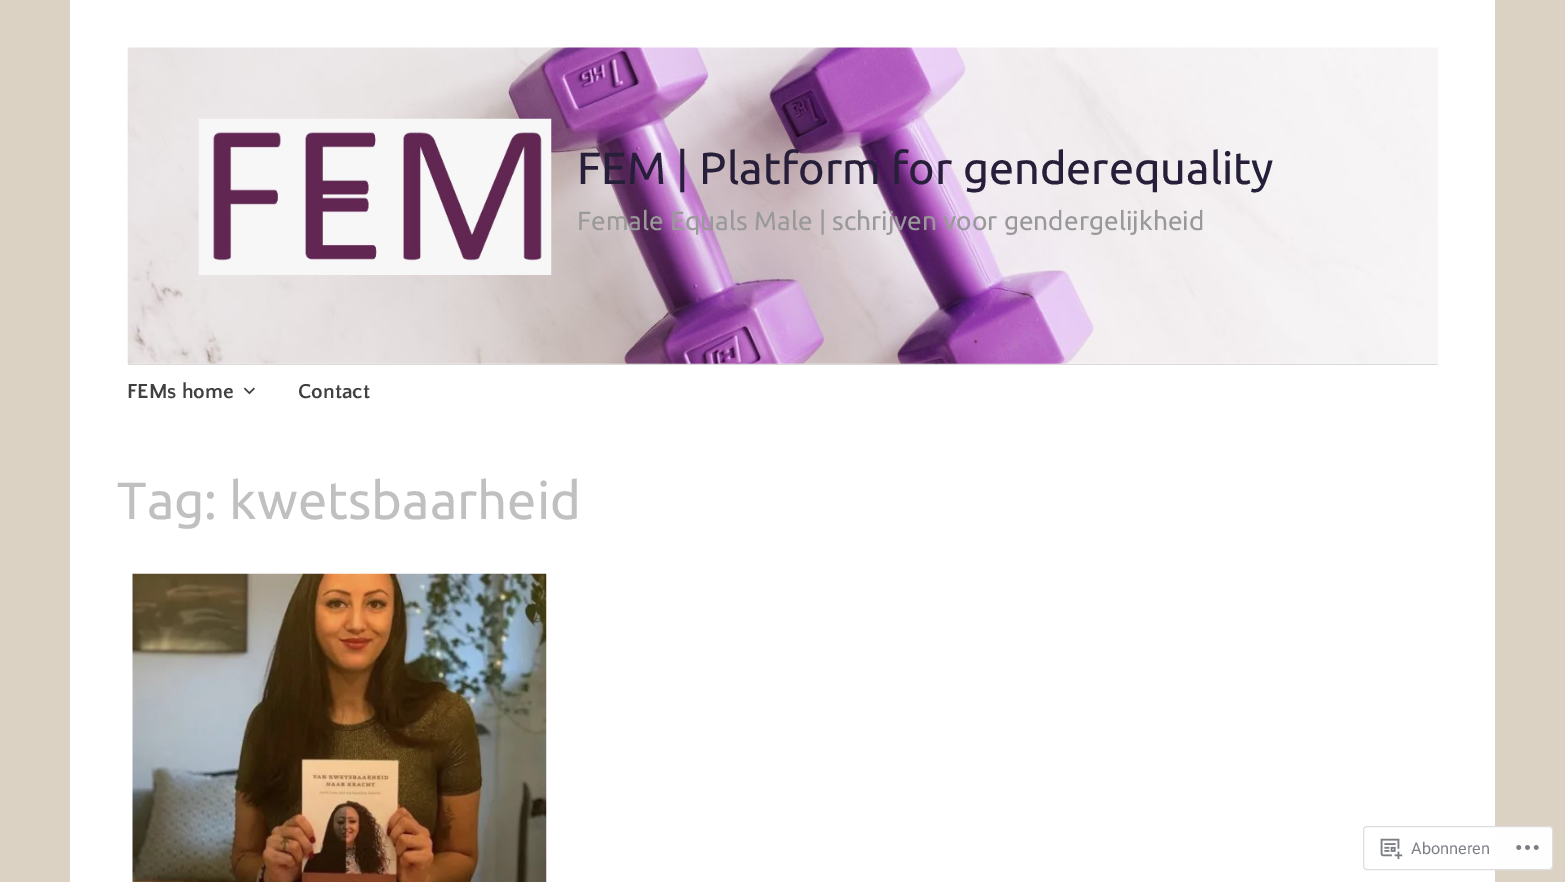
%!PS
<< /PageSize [1565 882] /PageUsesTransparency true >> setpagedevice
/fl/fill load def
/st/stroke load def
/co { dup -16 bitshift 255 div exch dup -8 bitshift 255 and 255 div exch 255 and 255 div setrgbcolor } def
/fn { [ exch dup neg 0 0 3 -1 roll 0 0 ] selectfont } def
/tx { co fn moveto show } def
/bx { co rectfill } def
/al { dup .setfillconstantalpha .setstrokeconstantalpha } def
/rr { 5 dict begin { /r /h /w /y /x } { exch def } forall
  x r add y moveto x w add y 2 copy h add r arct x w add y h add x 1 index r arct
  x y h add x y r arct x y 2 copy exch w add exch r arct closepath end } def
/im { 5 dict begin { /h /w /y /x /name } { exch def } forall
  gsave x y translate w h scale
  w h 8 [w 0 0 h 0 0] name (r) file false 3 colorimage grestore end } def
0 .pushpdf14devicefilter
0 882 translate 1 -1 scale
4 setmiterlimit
0 0 1565 882 16#DBD2C3 bx
70 0 1425 882 16#FFFFFF bx
(media/1.raw) 127 47 1311 317 im
(media/2.raw) 198 118 354 157 im
128 364 1310 1 16#D9D9D9 bx
(media/3.raw) 243 387 12 8 im
(media/4.raw) 132 573 415 309 im
0.98 al
16#FFFFFF co
1363 826 190 44 4 rr fl
16#DCDCDE co
1363.5 826.5 189 43 3.5 rr st
1 al
(media/5.raw) 1380 838 23 22 im
(media/6.raw) 1516 845 23 5 im
(FEM | Platform for genderequality) 577 184 /Ubuntu-Regular 45 16#271E3A tx
(Female Equals Male | schrijven voor gendergelijkheid) 577 230 /Ubuntu-Regular 26.25 16#999999 tx
(FEMs home) 127 398 /QuattrocentoSans-Bold 21.25 16#404040 tx
(Contact) 298 398 /QuattrocentoSans-Bold 21.25 16#404040 tx
(Tag: kwetsbaarheid) 117 519 /Ubuntu-Regular 52.5 16#C0C0C0 tx
(Abonneren) 1411 854 /Roboto-Regular 16.25 16#7B7F85 tx
.poppdf14devicefilter showpage
